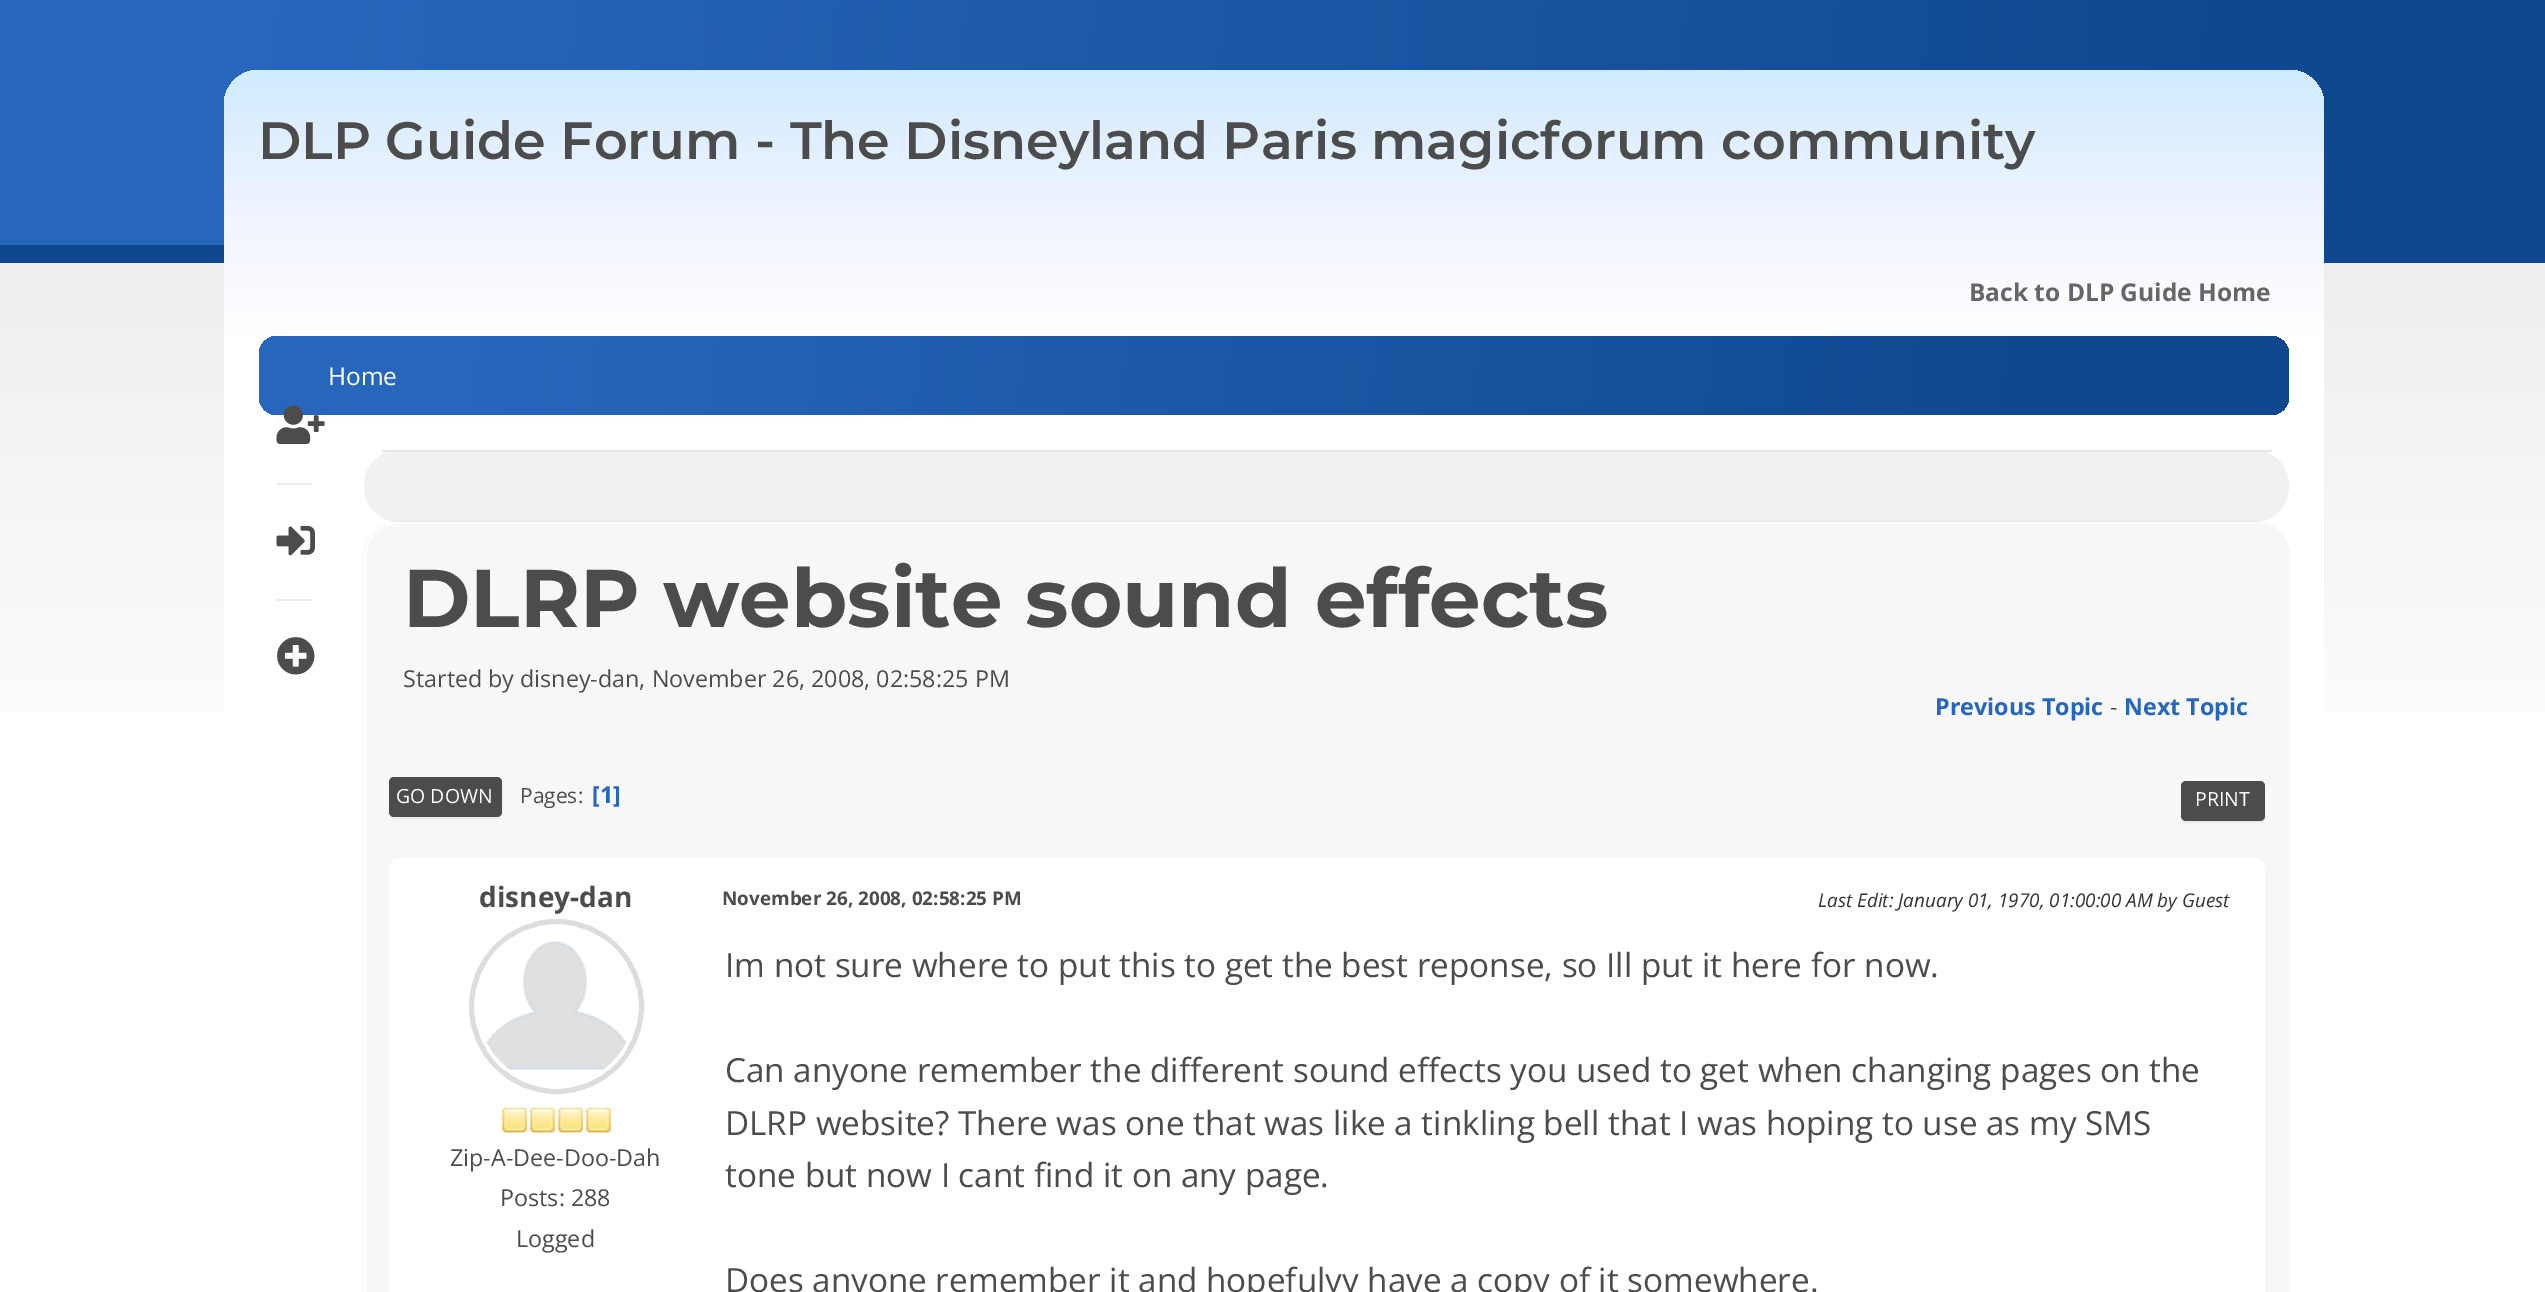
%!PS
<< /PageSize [2545 1292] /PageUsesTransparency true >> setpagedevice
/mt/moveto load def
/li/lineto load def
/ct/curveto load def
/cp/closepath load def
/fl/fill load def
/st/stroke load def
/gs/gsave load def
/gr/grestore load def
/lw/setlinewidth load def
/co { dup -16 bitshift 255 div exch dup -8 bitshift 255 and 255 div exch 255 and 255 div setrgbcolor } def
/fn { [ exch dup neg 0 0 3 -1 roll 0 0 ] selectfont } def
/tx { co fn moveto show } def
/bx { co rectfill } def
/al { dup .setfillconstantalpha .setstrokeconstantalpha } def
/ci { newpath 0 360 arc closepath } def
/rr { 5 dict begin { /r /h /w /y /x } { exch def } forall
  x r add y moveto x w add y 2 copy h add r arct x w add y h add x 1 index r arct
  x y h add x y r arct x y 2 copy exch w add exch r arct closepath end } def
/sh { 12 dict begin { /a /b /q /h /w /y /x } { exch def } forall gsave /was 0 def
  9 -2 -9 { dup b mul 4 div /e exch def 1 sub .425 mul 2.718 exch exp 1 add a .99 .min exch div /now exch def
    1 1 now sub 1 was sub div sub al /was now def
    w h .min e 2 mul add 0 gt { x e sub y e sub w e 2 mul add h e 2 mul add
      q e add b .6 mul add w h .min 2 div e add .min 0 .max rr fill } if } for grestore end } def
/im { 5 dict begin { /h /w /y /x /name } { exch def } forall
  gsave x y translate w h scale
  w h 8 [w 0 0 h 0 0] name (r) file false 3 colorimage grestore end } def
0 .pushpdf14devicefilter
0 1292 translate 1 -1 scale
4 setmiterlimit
0 0 2545 1292 16#FFFFFF bx
gs 0 0 mt 2545 0 li 2545 245 li 0 245 li cp clip newpath
<< /ShadingType 2 /ColorSpace /DeviceRGB /Coords [2.5 -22 2544 267] /Extend [true true] /Function << /FunctionType 3 /Domain [0 1] /Functions [<< /FunctionType 2 /Domain [0 1] /C0 [.153 .404 .733] /C1 [.153 .404 .733] /N 1 >> << /FunctionType 2 /Domain [0 1] /C0 [.153 .404 .733] /C1 [.063 .282 .565] /N 1 >> << /FunctionType 2 /Domain [0 1] /C0 [.063 .282 .565] /C1 [.063 .282 .565] /N 1 >>] /Bounds [.1 .88] /Encode [0 1 0 1 0 1] >> >> shfill gr
0 245 2545 18 16#104890 bx
gs 0 263 mt 2545 263 li 2545 711 li 0 711 li cp clip newpath
<< /ShadingType 2 /ColorSpace /DeviceRGB /Coords [1273 788 1273 263] /Extend [true true] /Function << /FunctionType 2 /Domain [0 1] /C0 [1 1 1] /C1 [.933 .933 .933] /N 1 >> >> shfill gr
16#FFFFFF co
224 70 2100 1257 35 rr fl
gs 259 70 mt 2289 70 li 2308.5 70 2324 85.5 2324 105 ct 2324 336 li 224 336 li 224 105 li 224 85.5 239.5 70 259 70 ct cp clip newpath
<< /ShadingType 2 /ColorSpace /DeviceRGB /Coords [1274 70 1274 336] /Extend [true true] /Function << /FunctionType 3 /Domain [0 1] /Functions [<< /FunctionType 2 /Domain [0 1] /C0 [.816 .922 1] /C1 [.878 .937 1] /N 1 >> << /FunctionType 2 /Domain [0 1] /C0 [.878 .937 1] /C1 [.929 .953 1] /N 1 >> << /FunctionType 2 /Domain [0 1] /C0 [.929 .953 1] /C1 [.973 .976 1] /N 1 >> << /FunctionType 2 /Domain [0 1] /C0 [.973 .976 1] /C1 [1 1 1] /N 1 >>] /Bounds [.25 .5 .75] /Encode [0 1 0 1 0 1 0 1] >> >> shfill gr
gs 259 336 2030 79 18 rr clip newpath
<< /ShadingType 2 /ColorSpace /DeviceRGB /Coords [268 261 2280 490] /Extend [true true] /Function << /FunctionType 3 /Domain [0 1] /Functions [<< /FunctionType 2 /Domain [0 1] /C0 [.153 .404 .733] /C1 [.153 .404 .733] /N 1 >> << /FunctionType 2 /Domain [0 1] /C0 [.153 .404 .733] /C1 [.063 .282 .565] /N 1 >> << /FunctionType 2 /Domain [0 1] /C0 [.063 .282 .565] /C1 [.063 .282 .565] /N 1 >>] /Bounds [.1 .88] /Encode [0 1 0 1 0 1] >> >> shfill gr
(media/1.raw) 276 405 49 40 im
277 483 35 2 16#EBEBEB bx
(media/2.raw) 276 525 39 31 im
277 599 35 2 16#EBEBEB bx
(media/3.raw) 277 637 38 38 im
16#F1F1F1 co
364 450 1925 72 35 rr fl
382 450 1890 2 16#E5E5E5 bx
16#000000 co
364 522 1925 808 35 1 .1 sh
16#F7F7F7 co
364 522 1925 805 35 rr fl
16#FFFFFF co
401 523 mt 2256 523 li 2262 523 2267 525 2272 527 ct 2267 524 2261 522 2254 522 ct 399 522 li 380 522 364 538 364 557 ct 364 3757 li 364 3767 368 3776 375 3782 ct 369 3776 366 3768 366 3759 ct 366 558 li 366 539 381 523 401 523 ct cp fl
16#000000 co
389 779 113 40 5 1 .05 sh
16#4C4C4C co
389 777 113 40 5 rr fl
16#000000 co
2181 782 84 41 5 1 .05 sh
16#4C4C4C co
2181 781 84 40 5 rr fl
16#FFFFFF co
389 858 1876 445 11 rr fl
16#DDDDDD co
5 lw
556.5 1006.5 85 ci st
(media/4.raw) 486 941 141 129 im
(media/5.raw) 501 1107 27 26 im
(media/6.raw) 529 1107 27 26 im
(media/5.raw) 557 1107 27 26 im
(media/6.raw) 585 1107 27 26 im
(DLP Guide Forum - The Disneyland Paris magicforum community) 258 159 /Montserrat-SemiBold 52.5 16#4C4C4C tx
(Back to DLP Guide Home) 1969 301 /OpenSans-Bold 24.5 16#666666 tx
(Home) 328 385 /OpenSans-Regular 24.5 16#FFFFFF tx
(DLRP website sound effects) 403 627 /Montserrat-Bold 81.7 16#4C4C4C tx
(Started by disney-dan, November 26, 2008, 02:58:25 PM) 403 687 /OpenSans-Regular 23.3 16#4C4C4C tx
(Previous Topic) 1935 715 /OpenSans-Bold 23.3 16#2767BB tx
(-) 2110 715 /OpenSans-Regular 23.3 16#4C4C4C tx
(Next Topic) 2124 715 /OpenSans-Bold 23.3 16#2767BB tx
(GO DOWN) 396 803 /OpenSans-Regular 19.5 16#FFFFFF tx
(Pages:) 520 803 /OpenSans-Regular 21 16#4C4C4C tx
([1]) 592 803 /OpenSans-Bold 23.3 16#2767BB tx
(PRINT) 2195 806 /OpenSans-Regular 19.5 16#FFFFFF tx
(disney-dan) 479 907 /OpenSans-Bold 28 16#4C4C4C tx
(Zip-A-Dee-Doo-Dah) 450 1166 /OpenSans-Regular 23.3 16#4C4C4C tx
(Posts: 288) 500 1206 /OpenSans-Regular 23.3 16#4C4C4C tx
(Logged) 516 1247 /OpenSans-Regular 23.3 16#4C4C4C tx
(November 26, 2008, 02:58:25 PM) 722 905 /OpenSans-Bold 18.9 16#4C4C4C tx
(Last Edit: January 01, 1970, 01:00:00 AM by Guest) 1818 907 /OpenSans-Italic 18.9 16#333333 tx
(Im not sure where to put this to get the best reponse, so Ill put it here for now.) 725 977 /OpenSans-Regular 33.25 16#4C4C4C tx
(Can anyone remember the different sound effects you used to get when changing pages on the) 725 1082 /OpenSans-Regular 33.25 16#4C4C4C tx
(DLRP website? There was one that was like a tinkling bell that I was hoping to use as my SMS) 725 1135 /OpenSans-Regular 33.25 16#4C4C4C tx
(tone but now I cant find it on any page.) 725 1187 /OpenSans-Regular 33.25 16#4C4C4C tx
(Does anyone remember it and hopefulyy have a copy of it somewhere.) 725 1292 /OpenSans-Regular 33.25 16#4C4C4C tx
.poppdf14devicefilter showpage
